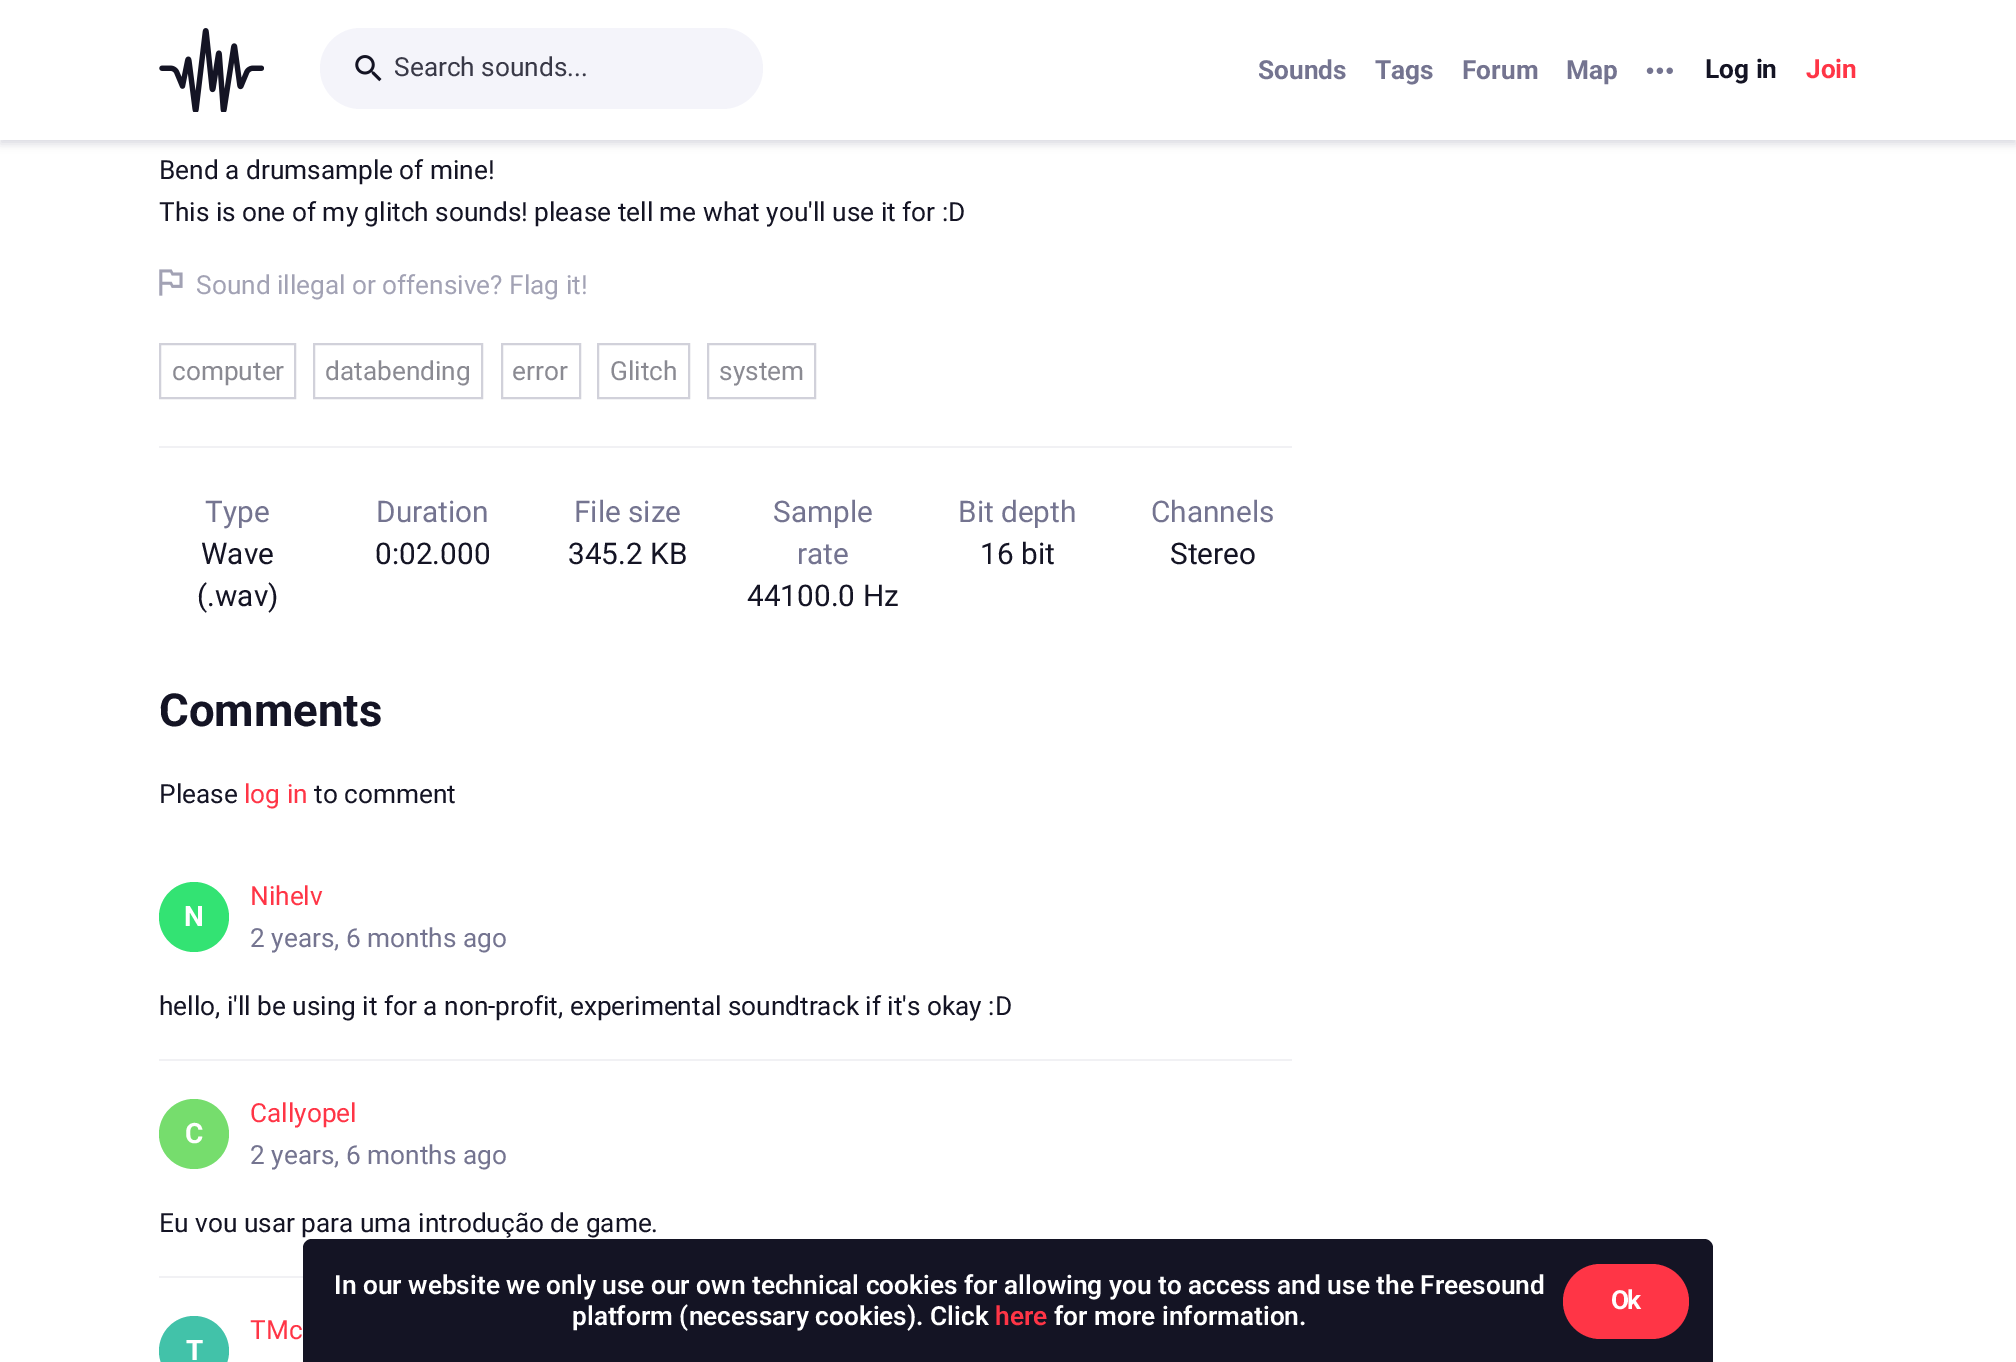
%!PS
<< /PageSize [2016 1362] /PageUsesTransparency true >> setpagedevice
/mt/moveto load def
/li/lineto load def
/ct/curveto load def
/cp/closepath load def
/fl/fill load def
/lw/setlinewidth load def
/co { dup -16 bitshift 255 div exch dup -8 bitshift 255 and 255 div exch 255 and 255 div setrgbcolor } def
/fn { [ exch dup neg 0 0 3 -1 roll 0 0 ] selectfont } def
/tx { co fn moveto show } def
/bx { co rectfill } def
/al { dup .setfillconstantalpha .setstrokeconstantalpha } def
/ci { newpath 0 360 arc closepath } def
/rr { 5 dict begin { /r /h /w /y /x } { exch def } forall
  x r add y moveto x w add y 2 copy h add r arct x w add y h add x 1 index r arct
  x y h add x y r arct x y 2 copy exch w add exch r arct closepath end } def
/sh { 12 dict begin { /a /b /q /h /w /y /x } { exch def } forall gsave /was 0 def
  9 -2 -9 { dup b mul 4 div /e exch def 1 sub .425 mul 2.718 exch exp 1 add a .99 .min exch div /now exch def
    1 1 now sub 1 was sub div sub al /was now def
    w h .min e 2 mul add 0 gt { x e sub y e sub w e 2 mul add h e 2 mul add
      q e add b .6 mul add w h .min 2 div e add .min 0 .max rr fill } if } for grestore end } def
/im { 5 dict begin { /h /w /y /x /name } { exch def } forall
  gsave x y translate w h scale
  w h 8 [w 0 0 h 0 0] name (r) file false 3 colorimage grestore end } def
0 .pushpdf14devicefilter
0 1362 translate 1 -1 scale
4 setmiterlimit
0 0 2016 1362 16#FFFFFF bx
16#A2A2B4 co
0 4 2016 140 0 4.5 .4 sh
0 0 2016 140 16#FFFFFF bx
(media/1.raw) 159 28 105 84 im
16#F4F4FA co
320 28 443 81 40.5 rr fl
(media/2.raw) 355 55 27 27 im
(media/3.raw) 1646 67 27 7 im
(media/4.raw) 159 269 24 27 im
16#D1D1DA co
2 lw
160 344 135 54 rectstroke
314 344 168 54 rectstroke
502 344 78 54 rectstroke
598 344 91 54 rectstroke
708 344 107 54 rectstroke
159 446 1133 2 16#F1F1F4 bx
16#33E373 co
194 917 35 ci fl
159 1059 1133 2 16#F1F1F4 bx
16#76DD6D co
194 1134 35 ci fl
159 1276 144 2 16#F1F1F4 bx
16#42C2A9 co
194 1351 35 ci fl
16#141424 co
312 1239 mt 1704 1239 li 1709 1239 1713 1243 1713 1248 ct 1713 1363 li 303 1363 li 303 1248 li 303 1243 307 1239 312 1239 ct cp fl
16#FF3546 co
1563 1264 126 75 37.5 rr fl
(Search sounds...) 394 76 /Roboto-Regular 26.25 16#393947 tx
(Sounds) 1258 79 /Roboto-Bold 26.25 16#747490 tx
(Tags) 1375 79 /Roboto-Bold 26.25 16#747490 tx
(Forum) 1462 79 /Roboto-Bold 26.25 16#747490 tx
(Map) 1566 79 /Roboto-Bold 26.25 16#747490 tx
(Log in) 1705 78 /Roboto-Bold 26.25 16#141424 tx
(Join) 1806 78 /Roboto-Bold 26.25 16#FF3546 tx
(Bend a drumsample of mine!) 159 179 /Roboto-Regular 26.25 16#141424 tx
(This is one of my glitch sounds! please tell me what you'll use it for :D) 159 221 /Roboto-Regular 26.25 16#141424 tx
(Sound illegal or offensive? Flag it!) 196 294 /Roboto-Regular 26.25 16#A2A2B4 tx
(computer) 172 380 /Roboto-Regular 26.25 16#8A8A92 tx
(databending) 325 380 /Roboto-Regular 26.25 16#8A8A92 tx
(error) 512 380 /Roboto-Regular 26.25 16#8A8A92 tx
(Glitch) 610 380 /Roboto-Regular 26.25 16#8A8A92 tx
(system) 719 380 /Roboto-Regular 26.25 16#8A8A92 tx
(Type) 205 522 /Roboto-Regular 29.75 16#747490 tx
(Wave) 201 564 /Roboto-Regular 29.75 16#141424 tx
(\(.wav\)) 197 606 /Roboto-Regular 29.75 16#141424 tx
(Duration) 376 522 /Roboto-Regular 29.75 16#747490 tx
(0:02.000) 375 564 /Roboto-Regular 29.75 16#141424 tx
(File size) 574 522 /Roboto-Regular 29.75 16#747490 tx
(345.2 KB) 568 564 /Roboto-Regular 29.75 16#141424 tx
(Sample) 773 522 /Roboto-Regular 29.75 16#747490 tx
(rate) 797 564 /Roboto-Regular 29.75 16#747490 tx
(44100.0 Hz) 747 606 /Roboto-Regular 29.75 16#141424 tx
(Bit depth) 958 522 /Roboto-Regular 29.75 16#747490 tx
(16 bit) 980 564 /Roboto-Regular 29.75 16#141424 tx
(Channels) 1151 522 /Roboto-Regular 29.75 16#747490 tx
(Stereo) 1170 564 /Roboto-Regular 29.75 16#141424 tx
(Comments) 159 726 /Roboto-Bold 45.5 16#141424 tx
(Please) 159 803 /Roboto-Regular 26.25 16#141424 tx
(log in) 244 803 /Roboto-Regular 26.25 16#FF3546 tx
(to comment) 314 803 /Roboto-Regular 26.25 16#141424 tx
(N) 184 926 /Roboto-Bold 28 16#FFFFFF tx
(Nihelv) 250 905 /Roboto-Regular 26.25 16#FF3546 tx
(2 years, 6 months ago) 250 947 /Roboto-Regular 26.25 16#747490 tx
(hello, i'll be using it for a non-profit, experimental soundtrack if it's okay :D) 159 1015 /Roboto-Regular 26.25 16#141424 tx
(C) 185 1143 /Roboto-Bold 28 16#FFFFFF tx
(Callyopel) 250 1122 /Roboto-Regular 26.25 16#FF3546 tx
(2 years, 6 months ago) 250 1164 /Roboto-Regular 26.25 16#747490 tx
(Eu vou usar para uma introdução de game.) 159 1232 /Roboto-Regular 26.25 16#141424 tx
(TMc) 250 1339 /Roboto-Regular 26.25 16#FF3546 tx
(T) 186 1360 /Roboto-Bold 28 16#FFFFFF tx
(In our website we only use our own technical cookies for allowing you to access and use the Freesound) 334 1294 /Roboto-SemiBold 26.25 16#FFFFFF tx
(platform \(necessary cookies\). Click) 572 1325 /Roboto-SemiBold 26.25 16#FFFFFF tx
(here) 995 1325 /Roboto-SemiBold 26.25 16#FF3546 tx
(for more information.) 1054 1325 /Roboto-SemiBold 26.25 16#FFFFFF tx
/Roboto-Bold 26.25 fn
1611 1309 mt -2 0 (Ok) ashow
.poppdf14devicefilter showpage
